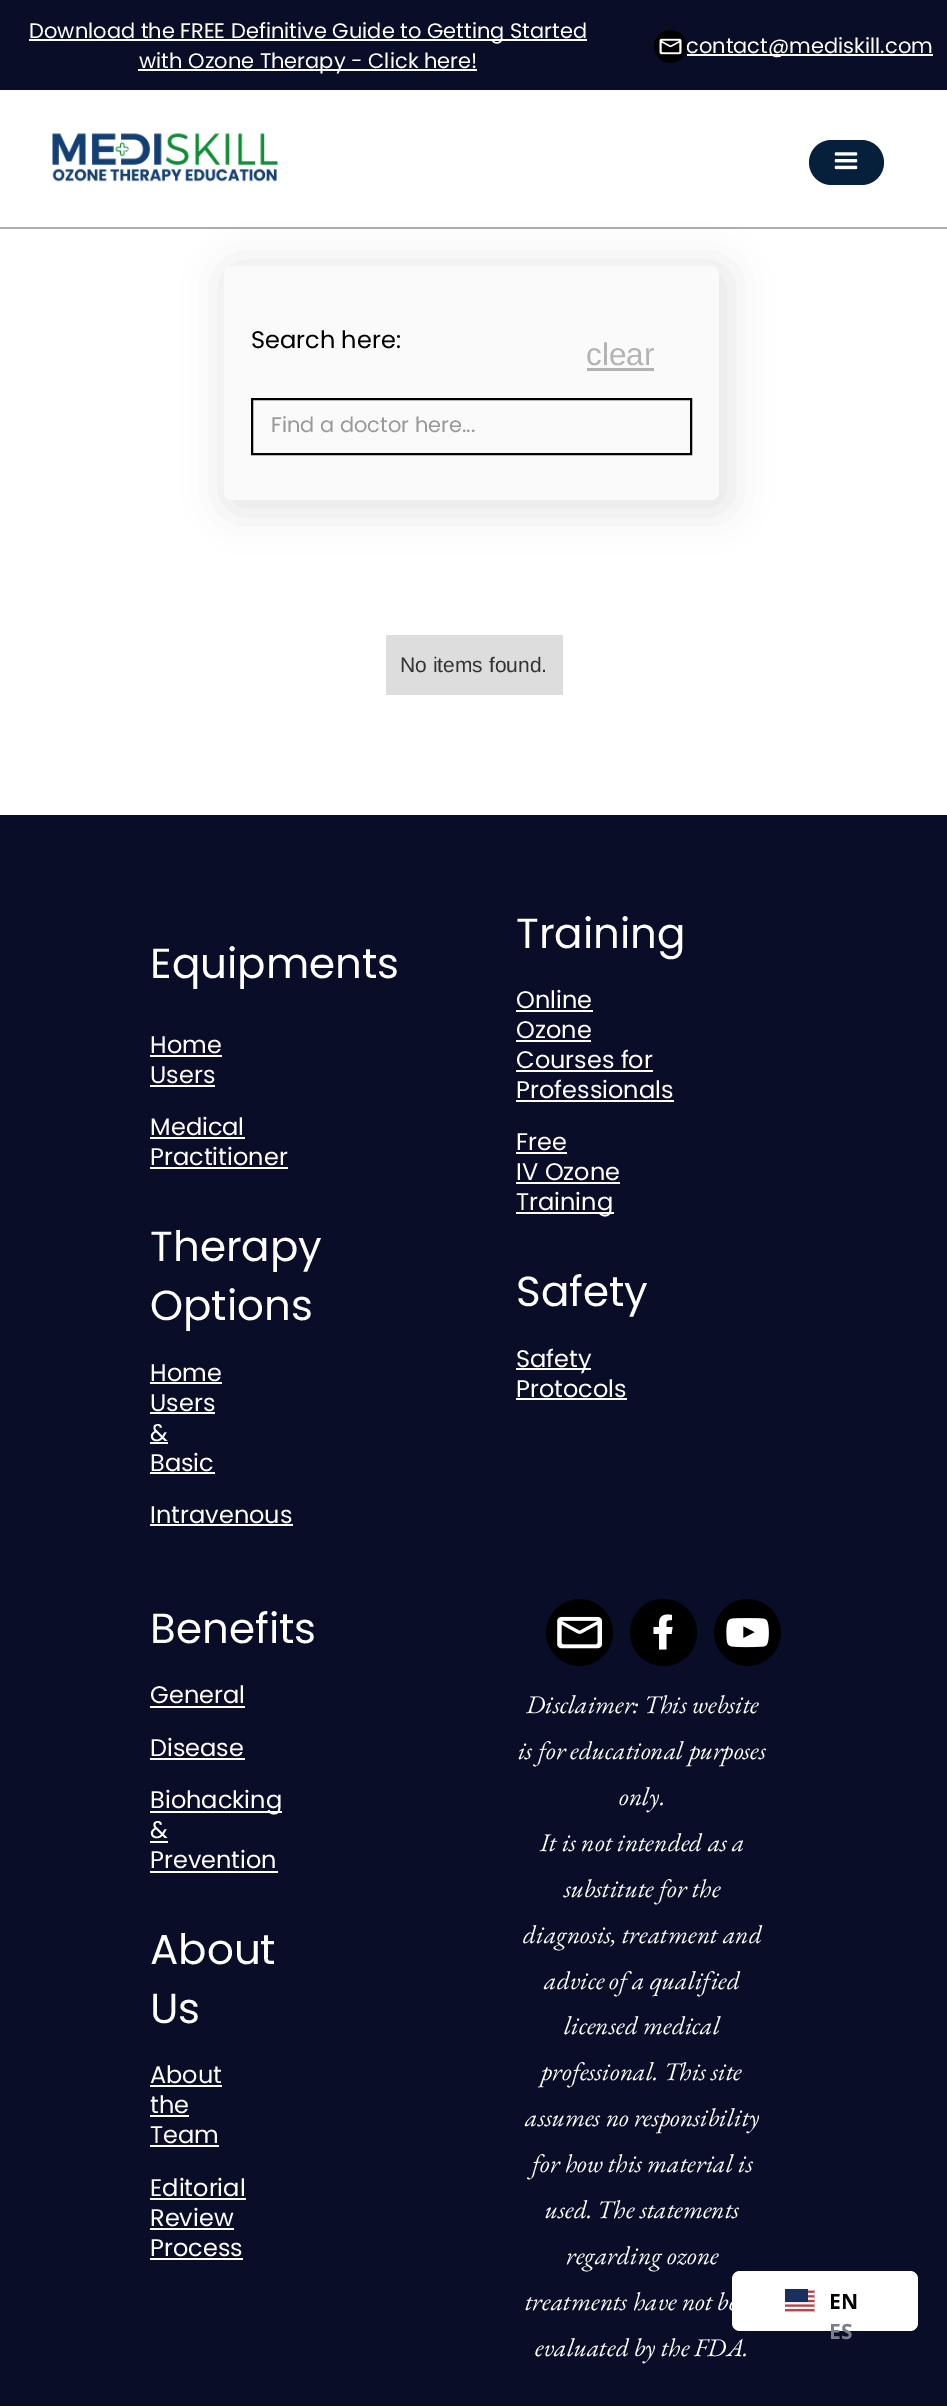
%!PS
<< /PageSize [947 2406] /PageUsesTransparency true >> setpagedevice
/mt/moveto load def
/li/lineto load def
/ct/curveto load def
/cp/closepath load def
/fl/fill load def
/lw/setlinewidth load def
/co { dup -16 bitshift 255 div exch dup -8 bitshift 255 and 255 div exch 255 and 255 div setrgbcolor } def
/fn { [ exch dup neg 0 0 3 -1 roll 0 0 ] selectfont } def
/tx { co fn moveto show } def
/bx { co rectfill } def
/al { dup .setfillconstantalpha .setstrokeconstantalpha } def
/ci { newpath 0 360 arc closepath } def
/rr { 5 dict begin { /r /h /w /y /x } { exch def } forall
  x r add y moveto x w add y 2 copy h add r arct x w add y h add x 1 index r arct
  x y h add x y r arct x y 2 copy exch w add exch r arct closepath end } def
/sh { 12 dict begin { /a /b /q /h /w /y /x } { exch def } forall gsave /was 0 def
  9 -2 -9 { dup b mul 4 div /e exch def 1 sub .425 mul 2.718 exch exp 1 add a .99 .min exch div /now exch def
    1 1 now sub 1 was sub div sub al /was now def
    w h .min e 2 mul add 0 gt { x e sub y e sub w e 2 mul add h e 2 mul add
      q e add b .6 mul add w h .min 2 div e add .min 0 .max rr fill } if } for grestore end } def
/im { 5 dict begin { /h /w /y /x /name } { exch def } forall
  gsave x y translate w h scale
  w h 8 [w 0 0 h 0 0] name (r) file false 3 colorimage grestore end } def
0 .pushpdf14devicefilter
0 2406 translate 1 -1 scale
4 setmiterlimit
0 0 947 2406 16#FFFFFF bx
0 0 947 90 16#090D27 bx
29 39 558 2 16#FFFFFF bx
138 69 339 2 16#FFFFFF bx
(media/1.raw) 654 30 33 33 im
687 54 246 2 16#FFFFFF bx
(media/2.raw) 52 133 226 49 im
16#061F3B co
809 140 75 45 22.5 rr fl
(media/3.raw) 834 152 24 18 im
0 227 947 2 16#ADADAD bx
16#000000 co
222 264 510 249 15 19 .1 sh
16#FAFAFA co
224 266 495 234 8 rr fl
587 368 67 3 16#B3B3B3 bx
16#000000 co
2 lw
252 399 439 55 rectstroke
386 635 177 60 16#DDDDDD bx
0 815 947 1591 16#0A0D28 bx
150 1055 72 2 16#FFFFFF bx
150 1085 65 2 16#FFFFFF bx
150 1137 95 2 16#FFFFFF bx
150 1167 138 2 16#FFFFFF bx
150 1382 72 2 16#FFFFFF bx
150 1412 65 2 16#FFFFFF bx
150 1442 18 2 16#FFFFFF bx
150 1472 65 2 16#FFFFFF bx
150 1524 143 2 16#FFFFFF bx
516 1010 77 2 16#FFFFFF bx
516 1040 75 2 16#FFFFFF bx
516 1070 137 2 16#FFFFFF bx
516 1100 158 2 16#FFFFFF bx
516 1152 51 2 16#FFFFFF bx
516 1182 104 2 16#FFFFFF bx
516 1212 98 2 16#FFFFFF bx
516 1368 75 2 16#FFFFFF bx
516 1398 111 2 16#FFFFFF bx
150 1706 95 2 16#FFFFFF bx
150 1758 95 2 16#FFFFFF bx
150 1811 132 2 16#FFFFFF bx
150 1841 18 2 16#FFFFFF bx
150 1871 128 2 16#FFFFFF bx
150 2085 72 2 16#FFFFFF bx
150 2115 39 2 16#FFFFFF bx
150 2145 69 2 16#FFFFFF bx
150 2198 96 2 16#FFFFFF bx
150 2228 84 2 16#FFFFFF bx
150 2258 93 2 16#FFFFFF bx
(media/4.raw) 546 1599 67 67 im
16#000000 co
663.5 1632.5 33.5 ci fl
16#FFFFFF co
666.5 1649.5 mt 666.5 1634 li 671.5 1634 li 672.5 1627 li 666.5 1627 li 666.5 1621 665.5 1620 672 1620 ct 672 1615 li 667.5 1614.5 li 659 1615 659 1620.5 659 1627 ct 653.5 1627 li 653.5 1634 li 659 1634 li 659 1649.5 li cp eofill
(media/5.raw) 714 1599 67 67 im
732 2271 186 60 8 rr fl
(media/6.raw) 785 2289 30 24 im
(Download the FREE Definitive Guide to Getting Started) 29 38 /Poppins-Regular 21 16#FFFFFF tx
(with Ozone Therapy - Click here!) 139 68 /Poppins-Regular 21 16#FFFFFF tx
(contact@mediskill.com) 686 53 /Poppins-Regular 21 16#FFFFFF tx
(Search here:) 251 348 /Poppins-Regular 24 16#000000 tx
(clear) 586 365 /LiberationSans-Regular 31.5 16#B3B3B3 tx
(Find a doctor here...) 271 432 /Poppins-Regular 21 16#999999 tx
(No items found.) 400 672 /LiberationSans-Regular 21 16#333333 tx
(Equipments) 150 978 /Poppins-Regular 42 16#FFFFFF tx
(Home) 150 1053 /Poppins-Regular 24 16#FFFFFF tx
(Users) 150 1083 /Poppins-Regular 24 16#FFFFFF tx
(Medical) 150 1135 /Poppins-Regular 24 16#FFFFFF tx
(Practitioner) 150 1165 /Poppins-Regular 24 16#FFFFFF tx
(Therapy) 150 1261 /Poppins-Regular 42 16#FFFFFF tx
(Options) 150 1320 /Poppins-Regular 42 16#FFFFFF tx
(Home) 150 1381 /Poppins-Regular 24 16#FFFFFF tx
(Users) 150 1411 /Poppins-Regular 24 16#FFFFFF tx
(&) 150 1441 /Poppins-Regular 24 16#FFFFFF tx
(Basic) 150 1471 /Poppins-Regular 24 16#FFFFFF tx
(Intravenous) 150 1523 /Poppins-Regular 24 16#FFFFFF tx
(Training) 516 948 /Poppins-Regular 42 16#FFFFFF tx
(Online) 516 1008 /Poppins-Regular 24 16#FFFFFF tx
(Ozone) 516 1038 /Poppins-Regular 24 16#FFFFFF tx
(Courses for) 516 1068 /Poppins-Regular 24 16#FFFFFF tx
(Professionals) 516 1098 /Poppins-Regular 24 16#FFFFFF tx
(Free) 516 1150 /Poppins-Regular 24 16#FFFFFF tx
(IV Ozone) 516 1180 /Poppins-Regular 24 16#FFFFFF tx
(Training) 516 1210 /Poppins-Regular 24 16#FFFFFF tx
(Safety) 516 1306 /Poppins-Regular 42 16#FFFFFF tx
(Safety) 516 1367 /Poppins-Regular 24 16#FFFFFF tx
(Protocols) 516 1397 /Poppins-Regular 24 16#FFFFFF tx
(Benefits) 150 1643 /Poppins-Regular 42 16#FFFFFF tx
(General) 150 1703 /Poppins-Regular 24 16#FFFFFF tx
(Disease) 150 1756 /Poppins-Regular 24 16#FFFFFF tx
(Biohacking) 150 1808 /Poppins-Regular 24 16#FFFFFF tx
(&) 150 1838 /Poppins-Regular 24 16#FFFFFF tx
(Prevention) 150 1868 /Poppins-Regular 24 16#FFFFFF tx
(About) 150 1964 /Poppins-Regular 42 16#FFFFFF tx
(Us) 150 2023 /Poppins-Regular 42 16#FFFFFF tx
(About) 150 2083 /Poppins-Regular 24 16#FFFFFF tx
(the) 150 2113 /Poppins-Regular 24 16#FFFFFF tx
(Team) 150 2143 /Poppins-Regular 24 16#FFFFFF tx
(Editorial) 150 2196 /Poppins-Regular 24 16#FFFFFF tx
(Review) 150 2226 /Poppins-Regular 24 16#FFFFFF tx
(Process) 150 2256 /Poppins-Regular 24 16#FFFFFF tx
(Disclaimer: This website) 526 1713 /EBGaramond-Italic 25.5 16#FFFFFF tx
(is for educational purposes) 518 1759 /EBGaramond-Italic 25.5 16#FFFFFF tx
(only.) 619 1805 /EBGaramond-Italic 25.5 16#FFFFFF tx
(It is not intended as a) 540 1851 /EBGaramond-Italic 25.5 16#FFFFFF tx
(substitute for the) 564 1897 /EBGaramond-Italic 25.5 16#FFFFFF tx
(diagnosis, treatment and) 523 1943 /EBGaramond-Italic 25.5 16#FFFFFF tx
(advice of a qualified) 544 1989 /EBGaramond-Italic 25.5 16#FFFFFF tx
(licensed medical) 564 2034 /EBGaramond-Italic 25.5 16#FFFFFF tx
(professional. This site) 541 2080 /EBGaramond-Italic 25.5 16#FFFFFF tx
(assumes no responsibility) 525 2126 /EBGaramond-Italic 25.5 16#FFFFFF tx
(for how this material is) 532 2172 /EBGaramond-Italic 25.5 16#FFFFFF tx
(used. The statements) 545 2218 /EBGaramond-Italic 25.5 16#FFFFFF tx
(regarding ozone) 566 2264 /EBGaramond-Italic 25.5 16#FFFFFF tx
(treatments have not be) 525 2310 /EBGaramond-Italic 25.5 16#FFFFFF tx
(evaluated by the FDA.) 535 2356 /EBGaramond-Italic 25.5 16#FFFFFF tx
(EN) 829 2309 /NotoSans-Bold 21 16#000000 tx
(ES) 829 2339 /NotoSans-Bold 21 16#7B7D8C tx
.poppdf14devicefilter showpage
